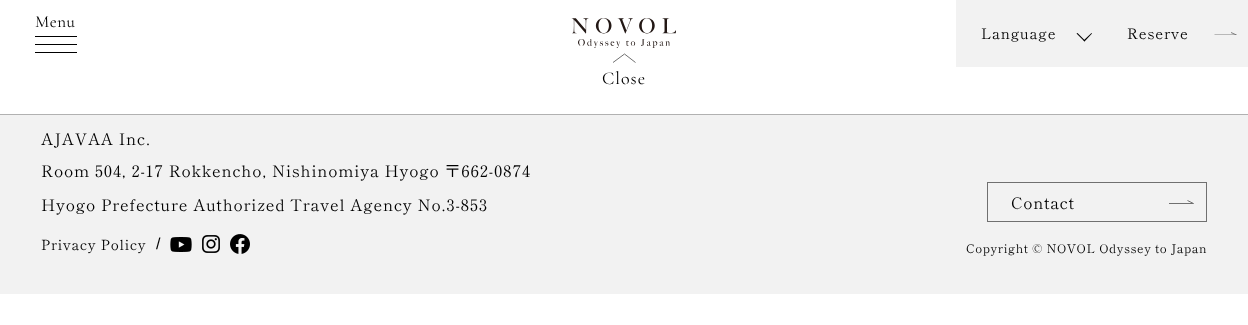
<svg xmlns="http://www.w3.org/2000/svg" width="1248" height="325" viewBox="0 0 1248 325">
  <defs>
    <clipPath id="clip1"><rect x="1214" y="32" width="23" height="3"/></clipPath>
  </defs>
  <rect width="100%" height="100%" fill="rgb(255,255,255)"/>
  <text x="35" y="27" font-family="Cormorant Garamond" font-size="17" letter-spacing="0.5" fill="rgb(0,0,0)">Menu</text>
  <rect x="35" y="36" width="42" height="1" fill="rgb(0,0,0)"/>
  <rect x="35" y="44" width="42" height="1" fill="rgb(0,0,0)"/>
  <rect x="35" y="52" width="42" height="1" fill="rgb(0,0,0)"/>
  <image x="571" y="18" width="105" height="30" href="pic1.png"/>
  <rect x="956" y="0" width="292" height="67" fill="rgb(242,242,242)"/>
  <text x="981" y="39" font-family="Shippori Mincho" font-size="14.5" letter-spacing="0.75" fill="rgb(0,0,0)">Language</text>
  <path d="M1092 33.5L1084.5 41.5L1083.5 40.5L1091.5 33Z" fill="rgb(0,0,0)"/>
  <path d="M1085 40.5L1084.5 41.5L1076.5 33.5L1077.5 33Z" fill="rgb(0,0,0)"/>
  <g clip-path="url(#clip1)">
    <path d="M1214.5 35H1236.5L1231 32.5" fill="none" stroke="rgb(112,112,112)" stroke-width="0.9"/>
  </g>
  <text x="1127" y="39" font-family="Shippori Mincho" font-size="14.5" letter-spacing="0.75" fill="rgb(0,0,0)">Reserve</text>
  <rect x="0" y="114" width="1248" height="1" fill="rgb(177,177,177)"/>
  <path d="M613 62.5L624.5 54L635.5 62.5" fill="none" stroke="rgb(112,112,112)"/>
  <text x="602" y="84" font-family="Cormorant Garamond" font-size="18" letter-spacing="1" fill="rgb(0,0,0)">Close</text>
  <rect x="0" y="115" width="1248" height="179" fill="rgb(242,242,242)"/>
  <g font-family="Shippori Mincho" font-size="16" letter-spacing="0.8" fill="rgb(0,0,0)">
    <text x="41" y="145">AJAVAA Inc.</text>
    <text x="41" y="177">Room 504, 2-17 Rokkencho, Nishinomiya Hyogo 〒662-0874</text>
    <text x="41" y="211">Hyogo Prefecture Authorized Travel Agency No.3-853</text>
  </g>
  <text x="41" y="250" font-family="Shippori Mincho" font-size="14" letter-spacing="0.75" fill="rgb(0,0,0)">Privacy Policy</text>
  <text x="156" y="249" font-family="Liberation Sans" font-size="16" fill="rgb(0,0,0)">/</text>
  <image x="170" y="237" width="22" height="15" href="pic2.png"/>
  <image x="202" y="235" width="18" height="18" href="pic3.png"/>
  <image x="230" y="234" width="20" height="20" href="pic4.png"/>
  <path d="M1169 203.5H1193.5L1187.5 200.5" fill="none" stroke="rgb(112,112,112)"/>
  <rect x="987.5" y="182.5" width="219" height="39" fill="none" stroke="rgb(112,112,112)"/>
  <text x="1011" y="209" font-family="Shippori Mincho" font-size="16" letter-spacing="0.8" fill="rgb(0,0,0)">Contact</text>
  <text x="966" y="253" font-family="Shippori Mincho" font-size="12" letter-spacing="0.6" fill="rgb(0,0,0)">Copyright © NOVOL Odyssey to Japan</text>
</svg>
